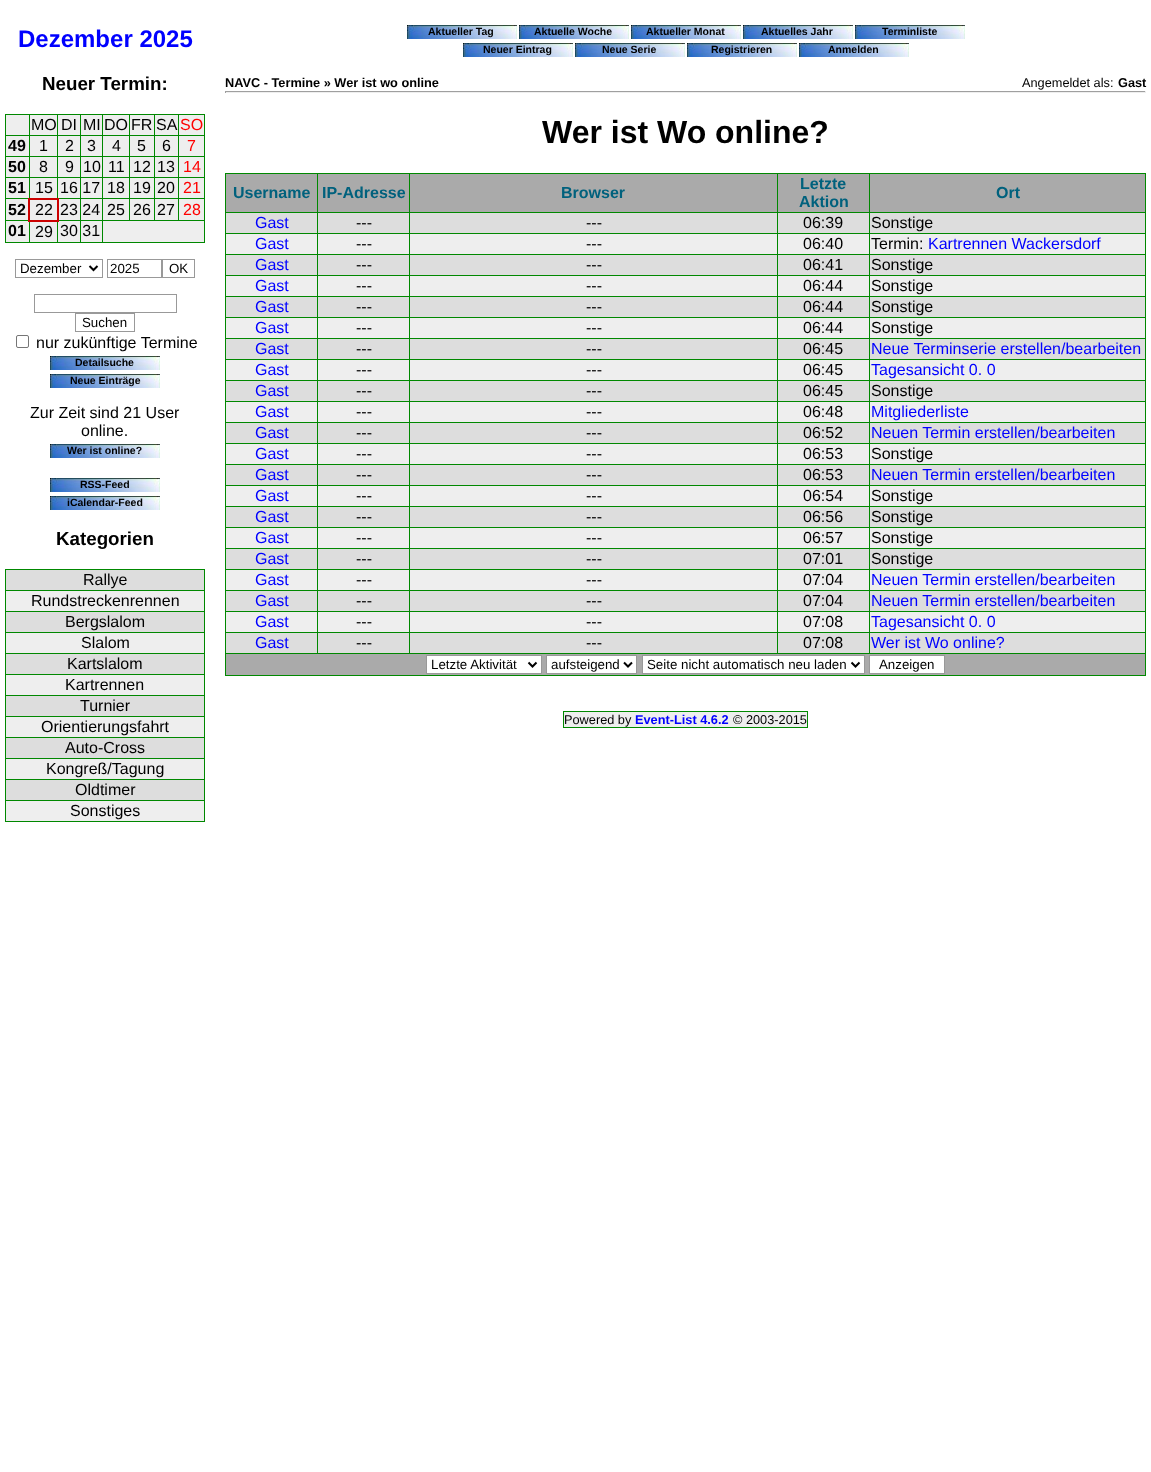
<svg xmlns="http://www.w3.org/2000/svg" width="1151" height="1472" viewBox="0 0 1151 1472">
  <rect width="100%" height="100%" fill="rgb(255,255,255)"/>
  <text x="18" y="47" font-family="Liberation Sans" font-size="24" font-weight="bold" fill="rgb(0,0,255)">Dezember 2025</text>
  <text x="42" y="90" font-family="Liberation Sans" font-size="18.75" font-weight="bold" fill="rgb(0,0,0)">Neuer Termin:</text>
  <rect x="6" y="115" width="198" height="127" fill="rgb(238,238,238)"/>
  <rect x="5" y="114" width="200" height="1" fill="rgb(0,136,0)"/>
  <rect x="204" y="114" width="1" height="129" fill="rgb(0,136,0)"/>
  <rect x="5" y="242" width="200" height="1" fill="rgb(0,136,0)"/>
  <rect x="5" y="114" width="1" height="129" fill="rgb(0,136,0)"/>
  <rect x="178" y="135" width="27" height="1" fill="rgb(0,136,0)"/>
  <rect x="178" y="156" width="27" height="1" fill="rgb(0,136,0)"/>
  <rect x="178" y="177" width="27" height="1" fill="rgb(0,136,0)"/>
  <rect x="178" y="198" width="27" height="1" fill="rgb(0,136,0)"/>
  <rect x="102" y="220" width="103" height="1" fill="rgb(0,136,0)"/>
  <rect x="178" y="198" width="1" height="23" fill="rgb(0,136,0)"/>
  <rect x="154" y="198" width="25" height="1" fill="rgb(0,136,0)"/>
  <rect x="178" y="177" width="1" height="22" fill="rgb(0,136,0)"/>
  <rect x="154" y="177" width="25" height="1" fill="rgb(0,136,0)"/>
  <rect x="178" y="156" width="1" height="22" fill="rgb(0,136,0)"/>
  <rect x="154" y="156" width="25" height="1" fill="rgb(0,136,0)"/>
  <rect x="178" y="135" width="1" height="22" fill="rgb(0,136,0)"/>
  <rect x="154" y="135" width="25" height="1" fill="rgb(0,136,0)"/>
  <rect x="154" y="198" width="1" height="23" fill="rgb(0,136,0)"/>
  <rect x="129" y="198" width="26" height="1" fill="rgb(0,136,0)"/>
  <rect x="154" y="177" width="1" height="22" fill="rgb(0,136,0)"/>
  <rect x="129" y="177" width="26" height="1" fill="rgb(0,136,0)"/>
  <rect x="154" y="156" width="1" height="22" fill="rgb(0,136,0)"/>
  <rect x="129" y="156" width="26" height="1" fill="rgb(0,136,0)"/>
  <rect x="154" y="135" width="1" height="22" fill="rgb(0,136,0)"/>
  <rect x="129" y="135" width="26" height="1" fill="rgb(0,136,0)"/>
  <rect x="129" y="198" width="1" height="23" fill="rgb(0,136,0)"/>
  <rect x="102" y="198" width="28" height="1" fill="rgb(0,136,0)"/>
  <rect x="129" y="177" width="1" height="22" fill="rgb(0,136,0)"/>
  <rect x="102" y="177" width="28" height="1" fill="rgb(0,136,0)"/>
  <rect x="129" y="156" width="1" height="22" fill="rgb(0,136,0)"/>
  <rect x="102" y="156" width="28" height="1" fill="rgb(0,136,0)"/>
  <rect x="129" y="135" width="1" height="22" fill="rgb(0,136,0)"/>
  <rect x="102" y="135" width="28" height="1" fill="rgb(0,136,0)"/>
  <rect x="102" y="220" width="1" height="23" fill="rgb(0,136,0)"/>
  <rect x="80" y="220" width="23" height="1" fill="rgb(0,136,0)"/>
  <rect x="102" y="198" width="1" height="23" fill="rgb(0,136,0)"/>
  <rect x="80" y="198" width="23" height="1" fill="rgb(0,136,0)"/>
  <rect x="102" y="177" width="1" height="22" fill="rgb(0,136,0)"/>
  <rect x="80" y="177" width="23" height="1" fill="rgb(0,136,0)"/>
  <rect x="102" y="156" width="1" height="22" fill="rgb(0,136,0)"/>
  <rect x="80" y="156" width="23" height="1" fill="rgb(0,136,0)"/>
  <rect x="102" y="135" width="1" height="22" fill="rgb(0,136,0)"/>
  <rect x="80" y="135" width="23" height="1" fill="rgb(0,136,0)"/>
  <rect x="80" y="220" width="1" height="23" fill="rgb(0,136,0)"/>
  <rect x="57" y="220" width="24" height="1" fill="rgb(0,136,0)"/>
  <rect x="80" y="198" width="1" height="23" fill="rgb(0,136,0)"/>
  <rect x="57" y="198" width="24" height="1" fill="rgb(0,136,0)"/>
  <rect x="80" y="177" width="1" height="22" fill="rgb(0,136,0)"/>
  <rect x="57" y="177" width="24" height="1" fill="rgb(0,136,0)"/>
  <rect x="80" y="156" width="1" height="22" fill="rgb(0,136,0)"/>
  <rect x="57" y="156" width="24" height="1" fill="rgb(0,136,0)"/>
  <rect x="80" y="135" width="1" height="22" fill="rgb(0,136,0)"/>
  <rect x="57" y="135" width="24" height="1" fill="rgb(0,136,0)"/>
  <rect x="57" y="177" width="1" height="22" fill="rgb(0,136,0)"/>
  <rect x="29" y="177" width="29" height="1" fill="rgb(0,136,0)"/>
  <rect x="57" y="156" width="1" height="22" fill="rgb(0,136,0)"/>
  <rect x="29" y="156" width="29" height="1" fill="rgb(0,136,0)"/>
  <rect x="57" y="135" width="1" height="22" fill="rgb(0,136,0)"/>
  <rect x="29" y="135" width="29" height="1" fill="rgb(0,136,0)"/>
  <rect x="5" y="198" width="25" height="1" fill="rgb(0,136,0)"/>
  <rect x="29" y="177" width="1" height="22" fill="rgb(0,136,0)"/>
  <rect x="5" y="177" width="25" height="1" fill="rgb(0,136,0)"/>
  <rect x="29" y="156" width="1" height="22" fill="rgb(0,136,0)"/>
  <rect x="5" y="156" width="25" height="1" fill="rgb(0,136,0)"/>
  <rect x="29" y="135" width="1" height="22" fill="rgb(0,136,0)"/>
  <rect x="5" y="135" width="25" height="1" fill="rgb(0,136,0)"/>
  <rect x="29" y="114" width="1" height="22" fill="rgb(0,136,0)"/>
  <text x="31" y="130" font-family="Liberation Sans" font-size="16" fill="rgb(0,0,0)">MO</text>
  <rect x="57" y="114" width="1" height="22" fill="rgb(0,136,0)"/>
  <text x="61" y="130" font-family="Liberation Sans" font-size="16" fill="rgb(0,0,0)">DI</text>
  <rect x="80" y="114" width="1" height="22" fill="rgb(0,136,0)"/>
  <text x="83" y="130" font-family="Liberation Sans" font-size="16" fill="rgb(0,0,0)">MI</text>
  <rect x="102" y="114" width="1" height="22" fill="rgb(0,136,0)"/>
  <text x="104" y="130" font-family="Liberation Sans" font-size="16" fill="rgb(0,0,0)">DO</text>
  <rect x="129" y="114" width="1" height="22" fill="rgb(0,136,0)"/>
  <text x="131" y="130" font-family="Liberation Sans" font-size="16" fill="rgb(0,0,0)">FR</text>
  <rect x="154" y="114" width="1" height="22" fill="rgb(0,136,0)"/>
  <text x="156" y="130" font-family="Liberation Sans" font-size="16" fill="rgb(0,0,0)">SA</text>
  <rect x="178" y="114" width="1" height="22" fill="rgb(0,136,0)"/>
  <text x="180" y="130" font-family="Liberation Sans" font-size="16" fill="rgb(255,0,0)">SO</text>
  <text x="8" y="151" font-family="Liberation Sans" font-size="16" font-weight="bold" fill="rgb(0,0,0)">49</text>
  <g font-family="Liberation Sans" font-size="16" fill="rgb(0,0,0)">
    <text x="39" y="151">1</text>
    <text x="65" y="151">2</text>
    <text x="87" y="151">3</text>
    <text x="112" y="151">4</text>
    <text x="137" y="151">5</text>
    <text x="162" y="151">6</text>
  </g>
  <text x="187" y="151" font-family="Liberation Sans" font-size="16" fill="rgb(255,0,0)">7</text>
  <text x="8" y="172" font-family="Liberation Sans" font-size="16" font-weight="bold" fill="rgb(0,0,0)">50</text>
  <g font-family="Liberation Sans" font-size="16" fill="rgb(0,0,0)">
    <text x="39" y="172">8</text>
    <text x="65" y="172">9</text>
    <text x="83" y="172">10</text>
    <text x="108" y="172">11</text>
    <text x="133" y="172">12</text>
    <text x="157" y="172">13</text>
  </g>
  <text x="183" y="172" font-family="Liberation Sans" font-size="16" fill="rgb(255,0,0)">14</text>
  <text x="8" y="193" font-family="Liberation Sans" font-size="16" font-weight="bold" fill="rgb(0,0,0)">51</text>
  <g font-family="Liberation Sans" font-size="16" fill="rgb(0,0,0)">
    <text x="35" y="193">15</text>
    <text x="60" y="193">16 17</text>
    <text x="107" y="193">18</text>
    <text x="133" y="193">19</text>
    <text x="157" y="193">20</text>
  </g>
  <text x="183" y="193" font-family="Liberation Sans" font-size="16" fill="rgb(255,0,0)">21</text>
  <text x="8" y="215" font-family="Liberation Sans" font-size="16" font-weight="bold" fill="rgb(0,0,0)">52</text>
  <rect x="28" y="198" width="31" height="2" fill="rgb(204,0,0)"/>
  <rect x="57" y="220" width="1" height="23" fill="rgb(0,136,0)"/>
  <rect x="57" y="198" width="2" height="24" fill="rgb(204,0,0)"/>
  <rect x="29" y="220" width="1" height="23" fill="rgb(0,136,0)"/>
  <rect x="5" y="220" width="25" height="1" fill="rgb(0,136,0)"/>
  <rect x="28" y="220" width="31" height="2" fill="rgb(204,0,0)"/>
  <rect x="28" y="198" width="2" height="24" fill="rgb(204,0,0)"/>
  <g font-family="Liberation Sans" font-size="16" fill="rgb(0,0,0)">
    <text x="35" y="215">22</text>
    <text x="60" y="215">23 24</text>
    <text x="107" y="215">25</text>
    <text x="133" y="215">26</text>
    <text x="157" y="215">27</text>
  </g>
  <text x="183" y="215" font-family="Liberation Sans" font-size="16" fill="rgb(255,0,0)">28</text>
  <text x="8" y="236" font-family="Liberation Sans" font-size="16" font-weight="bold" fill="rgb(0,0,0)">01</text>
  <g font-family="Liberation Sans" font-size="16" fill="rgb(0,0,0)">
    <text x="35" y="237">29</text>
    <text x="60" y="236">30 31</text>
  </g>
  <rect x="15.5" y="259.5" width="87" height="18" fill="none" stroke="rgb(153,153,153)"/>
  <path d="M89.5 266L93.5 270L97.5 266" fill="none" stroke="rgb(0,0,0)" stroke-width="2"/>
  <text x="20" y="273" font-family="Liberation Sans" font-size="13.3" fill="rgb(0,0,0)">Dezember</text>
  <rect x="107.5" y="259.5" width="54" height="18" fill="none" stroke="rgb(153,153,153)"/>
  <text x="110" y="273" font-family="Liberation Sans" font-size="13.3" fill="rgb(0,0,0)">2025</text>
  <rect x="162.5" y="259.5" width="32" height="18" fill="none" stroke="rgb(153,153,153)"/>
  <text x="169" y="273" font-family="Liberation Sans" font-size="13.3" fill="rgb(0,0,0)">OK</text>
  <rect x="34.5" y="294.5" width="142" height="18" fill="none" stroke="rgb(153,153,153)"/>
  <rect x="75.5" y="313.5" width="59" height="18" fill="none" stroke="rgb(153,153,153)"/>
  <text x="82" y="327" font-family="Liberation Sans" font-size="13.3" fill="rgb(0,0,0)">Suchen</text>
  <rect x="16.5" y="335.5" width="12" height="12" rx="1.5" fill="none" stroke="rgb(118,118,118)"/>
  <text x="36" y="348" font-family="Liberation Sans" font-size="16" fill="rgb(0,0,0)">nur zukünftige Termine</text>
  <image x="50" y="356" width="110" height="14" href="pic1.png"/>
  <text x="75" y="366" font-family="Liberation Sans" font-size="10.5" font-weight="bold" fill="rgb(0,0,0)">Detailsuche</text>
  <image x="50" y="374" width="110" height="14" href="pic1.png"/>
  <text x="70" y="384" font-family="Liberation Sans" font-size="10.5" font-weight="bold" fill="rgb(0,0,0)">Neue Einträge</text>
  <g font-family="Liberation Sans" font-size="16" fill="rgb(0,0,0)">
    <text x="30" y="418">Zur Zeit sind 21 User</text>
    <text x="81" y="436">online.</text>
  </g>
  <image x="50" y="444" width="110" height="14" href="pic1.png"/>
  <text x="67" y="454" font-family="Liberation Sans" font-size="10.5" font-weight="bold" fill="rgb(0,0,0)">Wer ist online?</text>
  <image x="50" y="478" width="110" height="14" href="pic1.png"/>
  <text x="80" y="488" font-family="Liberation Sans" font-size="10.5" font-weight="bold" fill="rgb(0,0,0)">RSS-Feed</text>
  <image x="50" y="496" width="110" height="14" href="pic1.png"/>
  <text x="67" y="506" font-family="Liberation Sans" font-size="10.5" font-weight="bold" fill="rgb(0,0,0)">iCalendar-Feed</text>
  <text x="56" y="545" font-family="Liberation Sans" font-size="18.75" font-weight="bold" fill="rgb(0,0,0)">Kategorien</text>
  <rect x="5" y="569" width="200" height="1" fill="rgb(0,136,0)"/>
  <rect x="204" y="569" width="1" height="253" fill="rgb(0,136,0)"/>
  <rect x="5" y="821" width="200" height="1" fill="rgb(0,136,0)"/>
  <rect x="5" y="569" width="1" height="253" fill="rgb(0,136,0)"/>
  <rect x="6" y="570" width="198" height="20" fill="rgb(221,221,221)"/>
  <text x="83" y="585" font-family="Liberation Sans" font-size="16" fill="rgb(0,0,0)">Rallye</text>
  <rect x="6" y="591" width="198" height="20" fill="rgb(238,238,238)"/>
  <rect x="5" y="590" width="200" height="1" fill="rgb(0,136,0)"/>
  <text x="31" y="606" font-family="Liberation Sans" font-size="16" fill="rgb(0,0,0)">Rundstreckenrennen</text>
  <rect x="6" y="612" width="198" height="20" fill="rgb(221,221,221)"/>
  <rect x="5" y="611" width="200" height="1" fill="rgb(0,136,0)"/>
  <text x="65" y="627" font-family="Liberation Sans" font-size="16" fill="rgb(0,0,0)">Bergslalom</text>
  <rect x="6" y="633" width="198" height="20" fill="rgb(238,238,238)"/>
  <rect x="5" y="632" width="200" height="1" fill="rgb(0,136,0)"/>
  <text x="81" y="648" font-family="Liberation Sans" font-size="16" fill="rgb(0,0,0)">Slalom</text>
  <rect x="6" y="654" width="198" height="20" fill="rgb(221,221,221)"/>
  <rect x="5" y="653" width="200" height="1" fill="rgb(0,136,0)"/>
  <text x="67" y="669" font-family="Liberation Sans" font-size="16" fill="rgb(0,0,0)">Kartslalom</text>
  <rect x="6" y="675" width="198" height="20" fill="rgb(238,238,238)"/>
  <rect x="5" y="674" width="200" height="1" fill="rgb(0,136,0)"/>
  <text x="65" y="690" font-family="Liberation Sans" font-size="16" fill="rgb(0,0,0)">Kartrennen</text>
  <rect x="6" y="696" width="198" height="20" fill="rgb(221,221,221)"/>
  <rect x="5" y="695" width="200" height="1" fill="rgb(0,136,0)"/>
  <text x="80" y="711" font-family="Liberation Sans" font-size="16" fill="rgb(0,0,0)">Turnier</text>
  <rect x="6" y="717" width="198" height="20" fill="rgb(238,238,238)"/>
  <rect x="5" y="716" width="200" height="1" fill="rgb(0,136,0)"/>
  <text x="41" y="732" font-family="Liberation Sans" font-size="16" fill="rgb(0,0,0)">Orientierungsfahrt</text>
  <rect x="6" y="738" width="198" height="20" fill="rgb(221,221,221)"/>
  <rect x="5" y="737" width="200" height="1" fill="rgb(0,136,0)"/>
  <text x="65" y="753" font-family="Liberation Sans" font-size="16" fill="rgb(0,0,0)">Auto-Cross</text>
  <rect x="6" y="759" width="198" height="20" fill="rgb(238,238,238)"/>
  <rect x="5" y="758" width="200" height="1" fill="rgb(0,136,0)"/>
  <text x="46" y="774" font-family="Liberation Sans" font-size="16" fill="rgb(0,0,0)">Kongreß/Tagung</text>
  <rect x="6" y="780" width="198" height="20" fill="rgb(221,221,221)"/>
  <rect x="5" y="779" width="200" height="1" fill="rgb(0,136,0)"/>
  <text x="75" y="795" font-family="Liberation Sans" font-size="16" fill="rgb(0,0,0)">Oldtimer</text>
  <rect x="6" y="801" width="198" height="20" fill="rgb(238,238,238)"/>
  <rect x="5" y="800" width="200" height="1" fill="rgb(0,136,0)"/>
  <text x="70" y="816" font-family="Liberation Sans" font-size="16" fill="rgb(0,0,0)">Sonstiges</text>
  <image x="407" y="25" width="110" height="14" href="pic1.png"/>
  <text x="428" y="35" font-family="Liberation Sans" font-size="10.5" font-weight="bold" fill="rgb(0,0,0)">Aktueller Tag</text>
  <image x="519" y="25" width="110" height="14" href="pic1.png"/>
  <text x="534" y="35" font-family="Liberation Sans" font-size="10.5" font-weight="bold" fill="rgb(0,0,0)">Aktuelle Woche</text>
  <image x="631" y="25" width="110" height="14" href="pic1.png"/>
  <text x="646" y="35" font-family="Liberation Sans" font-size="10.5" font-weight="bold" fill="rgb(0,0,0)">Aktueller Monat</text>
  <image x="743" y="25" width="110" height="14" href="pic1.png"/>
  <text x="761" y="35" font-family="Liberation Sans" font-size="10.5" font-weight="bold" fill="rgb(0,0,0)">Aktuelles Jahr</text>
  <image x="855" y="25" width="110" height="14" href="pic1.png"/>
  <text x="882" y="35" font-family="Liberation Sans" font-size="10.5" font-weight="bold" fill="rgb(0,0,0)">Terminliste</text>
  <image x="463" y="43" width="110" height="14" href="pic1.png"/>
  <text x="483" y="53" font-family="Liberation Sans" font-size="10.5" font-weight="bold" fill="rgb(0,0,0)">Neuer Eintrag</text>
  <image x="575" y="43" width="110" height="14" href="pic1.png"/>
  <text x="602" y="53" font-family="Liberation Sans" font-size="10.5" font-weight="bold" fill="rgb(0,0,0)">Neue Serie</text>
  <image x="687" y="43" width="110" height="14" href="pic1.png"/>
  <text x="711" y="53" font-family="Liberation Sans" font-size="10.5" font-weight="bold" fill="rgb(0,0,0)">Registrieren</text>
  <image x="799" y="43" width="110" height="14" href="pic1.png"/>
  <text x="828" y="53" font-family="Liberation Sans" font-size="10.5" font-weight="bold" fill="rgb(0,0,0)">Anmelden</text>
  <text x="225" y="87" font-family="Liberation Sans" font-size="12.75" font-weight="bold" fill="rgb(0,0,0)">NAVC - Termine » Wer ist wo online</text>
  <text x="1022" y="87" font-family="Liberation Sans" font-size="12.75" fill="rgb(0,0,0)">Angemeldet als:</text>
  <text x="1118" y="87" font-family="Liberation Sans" font-size="12.75" font-weight="bold" fill="rgb(0,0,0)">Gast</text>
  <rect x="225" y="91" width="921" height="1" fill="rgb(159,159,159)"/>
  <rect x="1145" y="91" width="1" height="2" fill="rgb(238,238,238)"/>
  <rect x="225" y="92" width="921" height="1" fill="rgb(238,238,238)"/>
  <rect x="225" y="91" width="1" height="2" fill="rgb(159,159,159)"/>
  <text x="542" y="143" font-family="Liberation Sans" font-size="32" font-weight="bold" fill="rgb(0,0,0)">Wer ist Wo online?</text>
  <rect x="225" y="173" width="921" height="1" fill="rgb(0,136,0)"/>
  <rect x="1145" y="173" width="1" height="503" fill="rgb(0,136,0)"/>
  <rect x="225" y="675" width="921" height="1" fill="rgb(0,136,0)"/>
  <rect x="225" y="173" width="1" height="503" fill="rgb(0,136,0)"/>
  <rect x="226" y="174" width="91" height="38" fill="rgb(170,170,170)"/>
  <text x="233" y="198" font-family="Liberation Sans" font-size="16" font-weight="bold" fill="rgb(0,97,125)">Username</text>
  <rect x="318" y="174" width="91" height="38" fill="rgb(170,170,170)"/>
  <rect x="869" y="212" width="277" height="1" fill="rgb(0,136,0)"/>
  <rect x="869" y="233" width="277" height="1" fill="rgb(0,136,0)"/>
  <rect x="869" y="254" width="277" height="1" fill="rgb(0,136,0)"/>
  <rect x="869" y="275" width="277" height="1" fill="rgb(0,136,0)"/>
  <rect x="869" y="296" width="277" height="1" fill="rgb(0,136,0)"/>
  <rect x="869" y="317" width="277" height="1" fill="rgb(0,136,0)"/>
  <rect x="869" y="338" width="277" height="1" fill="rgb(0,136,0)"/>
  <rect x="869" y="359" width="277" height="1" fill="rgb(0,136,0)"/>
  <rect x="869" y="380" width="277" height="1" fill="rgb(0,136,0)"/>
  <rect x="869" y="401" width="277" height="1" fill="rgb(0,136,0)"/>
  <rect x="869" y="422" width="277" height="1" fill="rgb(0,136,0)"/>
  <rect x="869" y="443" width="277" height="1" fill="rgb(0,136,0)"/>
  <rect x="869" y="464" width="277" height="1" fill="rgb(0,136,0)"/>
  <rect x="869" y="485" width="277" height="1" fill="rgb(0,136,0)"/>
  <rect x="869" y="506" width="277" height="1" fill="rgb(0,136,0)"/>
  <rect x="869" y="527" width="277" height="1" fill="rgb(0,136,0)"/>
  <rect x="869" y="548" width="277" height="1" fill="rgb(0,136,0)"/>
  <rect x="869" y="569" width="277" height="1" fill="rgb(0,136,0)"/>
  <rect x="869" y="590" width="277" height="1" fill="rgb(0,136,0)"/>
  <rect x="869" y="611" width="277" height="1" fill="rgb(0,136,0)"/>
  <rect x="869" y="632" width="277" height="1" fill="rgb(0,136,0)"/>
  <rect x="225" y="653" width="921" height="1" fill="rgb(0,136,0)"/>
  <rect x="869" y="632" width="1" height="22" fill="rgb(0,136,0)"/>
  <rect x="777" y="632" width="93" height="1" fill="rgb(0,136,0)"/>
  <rect x="869" y="611" width="1" height="22" fill="rgb(0,136,0)"/>
  <rect x="777" y="611" width="93" height="1" fill="rgb(0,136,0)"/>
  <rect x="869" y="590" width="1" height="22" fill="rgb(0,136,0)"/>
  <rect x="777" y="590" width="93" height="1" fill="rgb(0,136,0)"/>
  <rect x="869" y="569" width="1" height="22" fill="rgb(0,136,0)"/>
  <rect x="777" y="569" width="93" height="1" fill="rgb(0,136,0)"/>
  <rect x="869" y="548" width="1" height="22" fill="rgb(0,136,0)"/>
  <rect x="777" y="548" width="93" height="1" fill="rgb(0,136,0)"/>
  <rect x="869" y="527" width="1" height="22" fill="rgb(0,136,0)"/>
  <rect x="777" y="527" width="93" height="1" fill="rgb(0,136,0)"/>
  <rect x="869" y="506" width="1" height="22" fill="rgb(0,136,0)"/>
  <rect x="777" y="506" width="93" height="1" fill="rgb(0,136,0)"/>
  <rect x="869" y="485" width="1" height="22" fill="rgb(0,136,0)"/>
  <rect x="777" y="485" width="93" height="1" fill="rgb(0,136,0)"/>
  <rect x="869" y="464" width="1" height="22" fill="rgb(0,136,0)"/>
  <rect x="777" y="464" width="93" height="1" fill="rgb(0,136,0)"/>
  <rect x="869" y="443" width="1" height="22" fill="rgb(0,136,0)"/>
  <rect x="777" y="443" width="93" height="1" fill="rgb(0,136,0)"/>
  <rect x="869" y="422" width="1" height="22" fill="rgb(0,136,0)"/>
  <rect x="777" y="422" width="93" height="1" fill="rgb(0,136,0)"/>
  <rect x="869" y="401" width="1" height="22" fill="rgb(0,136,0)"/>
  <rect x="777" y="401" width="93" height="1" fill="rgb(0,136,0)"/>
  <rect x="869" y="380" width="1" height="22" fill="rgb(0,136,0)"/>
  <rect x="777" y="380" width="93" height="1" fill="rgb(0,136,0)"/>
  <rect x="869" y="359" width="1" height="22" fill="rgb(0,136,0)"/>
  <rect x="777" y="359" width="93" height="1" fill="rgb(0,136,0)"/>
  <rect x="869" y="338" width="1" height="22" fill="rgb(0,136,0)"/>
  <rect x="777" y="338" width="93" height="1" fill="rgb(0,136,0)"/>
  <rect x="869" y="317" width="1" height="22" fill="rgb(0,136,0)"/>
  <rect x="777" y="317" width="93" height="1" fill="rgb(0,136,0)"/>
  <rect x="869" y="296" width="1" height="22" fill="rgb(0,136,0)"/>
  <rect x="777" y="296" width="93" height="1" fill="rgb(0,136,0)"/>
  <rect x="869" y="275" width="1" height="22" fill="rgb(0,136,0)"/>
  <rect x="777" y="275" width="93" height="1" fill="rgb(0,136,0)"/>
  <rect x="869" y="254" width="1" height="22" fill="rgb(0,136,0)"/>
  <rect x="777" y="254" width="93" height="1" fill="rgb(0,136,0)"/>
  <rect x="869" y="233" width="1" height="22" fill="rgb(0,136,0)"/>
  <rect x="777" y="233" width="93" height="1" fill="rgb(0,136,0)"/>
  <rect x="869" y="212" width="1" height="22" fill="rgb(0,136,0)"/>
  <rect x="777" y="212" width="93" height="1" fill="rgb(0,136,0)"/>
  <rect x="777" y="632" width="1" height="22" fill="rgb(0,136,0)"/>
  <rect x="409" y="632" width="369" height="1" fill="rgb(0,136,0)"/>
  <rect x="777" y="611" width="1" height="22" fill="rgb(0,136,0)"/>
  <rect x="409" y="611" width="369" height="1" fill="rgb(0,136,0)"/>
  <rect x="777" y="590" width="1" height="22" fill="rgb(0,136,0)"/>
  <rect x="409" y="590" width="369" height="1" fill="rgb(0,136,0)"/>
  <rect x="777" y="569" width="1" height="22" fill="rgb(0,136,0)"/>
  <rect x="409" y="569" width="369" height="1" fill="rgb(0,136,0)"/>
  <rect x="777" y="548" width="1" height="22" fill="rgb(0,136,0)"/>
  <rect x="409" y="548" width="369" height="1" fill="rgb(0,136,0)"/>
  <rect x="777" y="527" width="1" height="22" fill="rgb(0,136,0)"/>
  <rect x="409" y="527" width="369" height="1" fill="rgb(0,136,0)"/>
  <rect x="777" y="506" width="1" height="22" fill="rgb(0,136,0)"/>
  <rect x="409" y="506" width="369" height="1" fill="rgb(0,136,0)"/>
  <rect x="777" y="485" width="1" height="22" fill="rgb(0,136,0)"/>
  <rect x="409" y="485" width="369" height="1" fill="rgb(0,136,0)"/>
  <rect x="777" y="464" width="1" height="22" fill="rgb(0,136,0)"/>
  <rect x="409" y="464" width="369" height="1" fill="rgb(0,136,0)"/>
  <rect x="777" y="443" width="1" height="22" fill="rgb(0,136,0)"/>
  <rect x="409" y="443" width="369" height="1" fill="rgb(0,136,0)"/>
  <rect x="777" y="422" width="1" height="22" fill="rgb(0,136,0)"/>
  <rect x="409" y="422" width="369" height="1" fill="rgb(0,136,0)"/>
  <rect x="777" y="401" width="1" height="22" fill="rgb(0,136,0)"/>
  <rect x="409" y="401" width="369" height="1" fill="rgb(0,136,0)"/>
  <rect x="777" y="380" width="1" height="22" fill="rgb(0,136,0)"/>
  <rect x="409" y="380" width="369" height="1" fill="rgb(0,136,0)"/>
  <rect x="777" y="359" width="1" height="22" fill="rgb(0,136,0)"/>
  <rect x="409" y="359" width="369" height="1" fill="rgb(0,136,0)"/>
  <rect x="777" y="338" width="1" height="22" fill="rgb(0,136,0)"/>
  <rect x="409" y="338" width="369" height="1" fill="rgb(0,136,0)"/>
  <rect x="777" y="317" width="1" height="22" fill="rgb(0,136,0)"/>
  <rect x="409" y="317" width="369" height="1" fill="rgb(0,136,0)"/>
  <rect x="777" y="296" width="1" height="22" fill="rgb(0,136,0)"/>
  <rect x="409" y="296" width="369" height="1" fill="rgb(0,136,0)"/>
  <rect x="777" y="275" width="1" height="22" fill="rgb(0,136,0)"/>
  <rect x="409" y="275" width="369" height="1" fill="rgb(0,136,0)"/>
  <rect x="777" y="254" width="1" height="22" fill="rgb(0,136,0)"/>
  <rect x="409" y="254" width="369" height="1" fill="rgb(0,136,0)"/>
  <rect x="777" y="233" width="1" height="22" fill="rgb(0,136,0)"/>
  <rect x="409" y="233" width="369" height="1" fill="rgb(0,136,0)"/>
  <rect x="777" y="212" width="1" height="22" fill="rgb(0,136,0)"/>
  <rect x="409" y="212" width="369" height="1" fill="rgb(0,136,0)"/>
  <rect x="409" y="632" width="1" height="22" fill="rgb(0,136,0)"/>
  <rect x="317" y="632" width="93" height="1" fill="rgb(0,136,0)"/>
  <rect x="409" y="611" width="1" height="22" fill="rgb(0,136,0)"/>
  <rect x="317" y="611" width="93" height="1" fill="rgb(0,136,0)"/>
  <rect x="409" y="590" width="1" height="22" fill="rgb(0,136,0)"/>
  <rect x="317" y="590" width="93" height="1" fill="rgb(0,136,0)"/>
  <rect x="409" y="569" width="1" height="22" fill="rgb(0,136,0)"/>
  <rect x="317" y="569" width="93" height="1" fill="rgb(0,136,0)"/>
  <rect x="409" y="548" width="1" height="22" fill="rgb(0,136,0)"/>
  <rect x="317" y="548" width="93" height="1" fill="rgb(0,136,0)"/>
  <rect x="409" y="527" width="1" height="22" fill="rgb(0,136,0)"/>
  <rect x="317" y="527" width="93" height="1" fill="rgb(0,136,0)"/>
  <rect x="409" y="506" width="1" height="22" fill="rgb(0,136,0)"/>
  <rect x="317" y="506" width="93" height="1" fill="rgb(0,136,0)"/>
  <rect x="409" y="485" width="1" height="22" fill="rgb(0,136,0)"/>
  <rect x="317" y="485" width="93" height="1" fill="rgb(0,136,0)"/>
  <rect x="409" y="464" width="1" height="22" fill="rgb(0,136,0)"/>
  <rect x="317" y="464" width="93" height="1" fill="rgb(0,136,0)"/>
  <rect x="409" y="443" width="1" height="22" fill="rgb(0,136,0)"/>
  <rect x="317" y="443" width="93" height="1" fill="rgb(0,136,0)"/>
  <rect x="409" y="422" width="1" height="22" fill="rgb(0,136,0)"/>
  <rect x="317" y="422" width="93" height="1" fill="rgb(0,136,0)"/>
  <rect x="409" y="401" width="1" height="22" fill="rgb(0,136,0)"/>
  <rect x="317" y="401" width="93" height="1" fill="rgb(0,136,0)"/>
  <rect x="409" y="380" width="1" height="22" fill="rgb(0,136,0)"/>
  <rect x="317" y="380" width="93" height="1" fill="rgb(0,136,0)"/>
  <rect x="409" y="359" width="1" height="22" fill="rgb(0,136,0)"/>
  <rect x="317" y="359" width="93" height="1" fill="rgb(0,136,0)"/>
  <rect x="409" y="338" width="1" height="22" fill="rgb(0,136,0)"/>
  <rect x="317" y="338" width="93" height="1" fill="rgb(0,136,0)"/>
  <rect x="409" y="317" width="1" height="22" fill="rgb(0,136,0)"/>
  <rect x="317" y="317" width="93" height="1" fill="rgb(0,136,0)"/>
  <rect x="409" y="296" width="1" height="22" fill="rgb(0,136,0)"/>
  <rect x="317" y="296" width="93" height="1" fill="rgb(0,136,0)"/>
  <rect x="409" y="275" width="1" height="22" fill="rgb(0,136,0)"/>
  <rect x="317" y="275" width="93" height="1" fill="rgb(0,136,0)"/>
  <rect x="409" y="254" width="1" height="22" fill="rgb(0,136,0)"/>
  <rect x="317" y="254" width="93" height="1" fill="rgb(0,136,0)"/>
  <rect x="409" y="233" width="1" height="22" fill="rgb(0,136,0)"/>
  <rect x="317" y="233" width="93" height="1" fill="rgb(0,136,0)"/>
  <rect x="409" y="212" width="1" height="22" fill="rgb(0,136,0)"/>
  <rect x="317" y="212" width="93" height="1" fill="rgb(0,136,0)"/>
  <rect x="317" y="632" width="1" height="22" fill="rgb(0,136,0)"/>
  <rect x="225" y="632" width="93" height="1" fill="rgb(0,136,0)"/>
  <rect x="317" y="611" width="1" height="22" fill="rgb(0,136,0)"/>
  <rect x="225" y="611" width="93" height="1" fill="rgb(0,136,0)"/>
  <rect x="317" y="590" width="1" height="22" fill="rgb(0,136,0)"/>
  <rect x="225" y="590" width="93" height="1" fill="rgb(0,136,0)"/>
  <rect x="317" y="569" width="1" height="22" fill="rgb(0,136,0)"/>
  <rect x="225" y="569" width="93" height="1" fill="rgb(0,136,0)"/>
  <rect x="317" y="548" width="1" height="22" fill="rgb(0,136,0)"/>
  <rect x="225" y="548" width="93" height="1" fill="rgb(0,136,0)"/>
  <rect x="317" y="527" width="1" height="22" fill="rgb(0,136,0)"/>
  <rect x="225" y="527" width="93" height="1" fill="rgb(0,136,0)"/>
  <rect x="317" y="506" width="1" height="22" fill="rgb(0,136,0)"/>
  <rect x="225" y="506" width="93" height="1" fill="rgb(0,136,0)"/>
  <rect x="317" y="485" width="1" height="22" fill="rgb(0,136,0)"/>
  <rect x="225" y="485" width="93" height="1" fill="rgb(0,136,0)"/>
  <rect x="317" y="464" width="1" height="22" fill="rgb(0,136,0)"/>
  <rect x="225" y="464" width="93" height="1" fill="rgb(0,136,0)"/>
  <rect x="317" y="443" width="1" height="22" fill="rgb(0,136,0)"/>
  <rect x="225" y="443" width="93" height="1" fill="rgb(0,136,0)"/>
  <rect x="317" y="422" width="1" height="22" fill="rgb(0,136,0)"/>
  <rect x="225" y="422" width="93" height="1" fill="rgb(0,136,0)"/>
  <rect x="317" y="401" width="1" height="22" fill="rgb(0,136,0)"/>
  <rect x="225" y="401" width="93" height="1" fill="rgb(0,136,0)"/>
  <rect x="317" y="380" width="1" height="22" fill="rgb(0,136,0)"/>
  <rect x="225" y="380" width="93" height="1" fill="rgb(0,136,0)"/>
  <rect x="317" y="359" width="1" height="22" fill="rgb(0,136,0)"/>
  <rect x="225" y="359" width="93" height="1" fill="rgb(0,136,0)"/>
  <rect x="317" y="338" width="1" height="22" fill="rgb(0,136,0)"/>
  <rect x="225" y="338" width="93" height="1" fill="rgb(0,136,0)"/>
  <rect x="317" y="317" width="1" height="22" fill="rgb(0,136,0)"/>
  <rect x="225" y="317" width="93" height="1" fill="rgb(0,136,0)"/>
  <rect x="317" y="296" width="1" height="22" fill="rgb(0,136,0)"/>
  <rect x="225" y="296" width="93" height="1" fill="rgb(0,136,0)"/>
  <rect x="317" y="275" width="1" height="22" fill="rgb(0,136,0)"/>
  <rect x="225" y="275" width="93" height="1" fill="rgb(0,136,0)"/>
  <rect x="317" y="254" width="1" height="22" fill="rgb(0,136,0)"/>
  <rect x="225" y="254" width="93" height="1" fill="rgb(0,136,0)"/>
  <rect x="317" y="233" width="1" height="22" fill="rgb(0,136,0)"/>
  <rect x="225" y="233" width="93" height="1" fill="rgb(0,136,0)"/>
  <rect x="317" y="212" width="1" height="22" fill="rgb(0,136,0)"/>
  <rect x="225" y="212" width="93" height="1" fill="rgb(0,136,0)"/>
  <rect x="317" y="173" width="1" height="40" fill="rgb(0,136,0)"/>
  <text x="322" y="198" font-family="Liberation Sans" font-size="16" font-weight="bold" fill="rgb(0,97,125)">IP-Adresse</text>
  <rect x="410" y="174" width="367" height="38" fill="rgb(170,170,170)"/>
  <rect x="409" y="173" width="1" height="40" fill="rgb(0,136,0)"/>
  <text x="561" y="198" font-family="Liberation Sans" font-size="16" font-weight="bold" fill="rgb(0,97,125)">Browser</text>
  <rect x="778" y="174" width="91" height="38" fill="rgb(170,170,170)"/>
  <rect x="777" y="173" width="1" height="40" fill="rgb(0,136,0)"/>
  <g font-family="Liberation Sans" font-size="16" font-weight="bold" fill="rgb(0,97,125)">
    <text x="800" y="189">Letzte</text>
    <text x="799" y="207">Aktion</text>
  </g>
  <rect x="870" y="174" width="275" height="38" fill="rgb(170,170,170)"/>
  <rect x="869" y="173" width="1" height="40" fill="rgb(0,136,0)"/>
  <text x="996" y="198" font-family="Liberation Sans" font-size="16" font-weight="bold" fill="rgb(0,97,125)">Ort</text>
  <rect x="226" y="213" width="91" height="20" fill="rgb(221,221,221)"/>
  <text x="255" y="228" font-family="Liberation Sans" font-size="16" fill="rgb(0,0,255)">Gast</text>
  <rect x="318" y="213" width="91" height="20" fill="rgb(221,221,221)"/>
  <text x="356" y="228" font-family="Liberation Sans" font-size="16" fill="rgb(0,0,0)">---</text>
  <rect x="410" y="213" width="367" height="20" fill="rgb(221,221,221)"/>
  <text x="586" y="228" font-family="Liberation Sans" font-size="16" fill="rgb(0,0,0)">---</text>
  <rect x="778" y="213" width="91" height="20" fill="rgb(221,221,221)"/>
  <text x="803" y="228" font-family="Liberation Sans" font-size="16" fill="rgb(0,0,0)">06:39</text>
  <rect x="870" y="213" width="275" height="20" fill="rgb(221,221,221)"/>
  <text x="871" y="228" font-family="Liberation Sans" font-size="16" fill="rgb(0,0,0)">Sonstige</text>
  <rect x="226" y="234" width="91" height="20" fill="rgb(238,238,238)"/>
  <text x="255" y="249" font-family="Liberation Sans" font-size="16" fill="rgb(0,0,255)">Gast</text>
  <rect x="318" y="234" width="91" height="20" fill="rgb(238,238,238)"/>
  <text x="356" y="249" font-family="Liberation Sans" font-size="16" fill="rgb(0,0,0)">---</text>
  <rect x="410" y="234" width="367" height="20" fill="rgb(238,238,238)"/>
  <text x="586" y="249" font-family="Liberation Sans" font-size="16" fill="rgb(0,0,0)">---</text>
  <rect x="778" y="234" width="91" height="20" fill="rgb(238,238,238)"/>
  <text x="803" y="249" font-family="Liberation Sans" font-size="16" fill="rgb(0,0,0)">06:40</text>
  <rect x="870" y="234" width="275" height="20" fill="rgb(238,238,238)"/>
  <text x="871" y="249" font-family="Liberation Sans" font-size="16" fill="rgb(0,0,0)">Termin:</text>
  <text x="928" y="249" font-family="Liberation Sans" font-size="16" fill="rgb(0,0,255)">Kartrennen Wackersdorf</text>
  <rect x="226" y="255" width="91" height="20" fill="rgb(221,221,221)"/>
  <text x="255" y="270" font-family="Liberation Sans" font-size="16" fill="rgb(0,0,255)">Gast</text>
  <rect x="318" y="255" width="91" height="20" fill="rgb(221,221,221)"/>
  <text x="356" y="270" font-family="Liberation Sans" font-size="16" fill="rgb(0,0,0)">---</text>
  <rect x="410" y="255" width="367" height="20" fill="rgb(221,221,221)"/>
  <text x="586" y="270" font-family="Liberation Sans" font-size="16" fill="rgb(0,0,0)">---</text>
  <rect x="778" y="255" width="91" height="20" fill="rgb(221,221,221)"/>
  <text x="803" y="270" font-family="Liberation Sans" font-size="16" fill="rgb(0,0,0)">06:41</text>
  <rect x="870" y="255" width="275" height="20" fill="rgb(221,221,221)"/>
  <text x="871" y="270" font-family="Liberation Sans" font-size="16" fill="rgb(0,0,0)">Sonstige</text>
  <rect x="226" y="276" width="91" height="20" fill="rgb(238,238,238)"/>
  <text x="255" y="291" font-family="Liberation Sans" font-size="16" fill="rgb(0,0,255)">Gast</text>
  <rect x="318" y="276" width="91" height="20" fill="rgb(238,238,238)"/>
  <text x="356" y="291" font-family="Liberation Sans" font-size="16" fill="rgb(0,0,0)">---</text>
  <rect x="410" y="276" width="367" height="20" fill="rgb(238,238,238)"/>
  <text x="586" y="291" font-family="Liberation Sans" font-size="16" fill="rgb(0,0,0)">---</text>
  <rect x="778" y="276" width="91" height="20" fill="rgb(238,238,238)"/>
  <text x="803" y="291" font-family="Liberation Sans" font-size="16" fill="rgb(0,0,0)">06:44</text>
  <rect x="870" y="276" width="275" height="20" fill="rgb(238,238,238)"/>
  <text x="871" y="291" font-family="Liberation Sans" font-size="16" fill="rgb(0,0,0)">Sonstige</text>
  <rect x="226" y="297" width="91" height="20" fill="rgb(221,221,221)"/>
  <text x="255" y="312" font-family="Liberation Sans" font-size="16" fill="rgb(0,0,255)">Gast</text>
  <rect x="318" y="297" width="91" height="20" fill="rgb(221,221,221)"/>
  <text x="356" y="312" font-family="Liberation Sans" font-size="16" fill="rgb(0,0,0)">---</text>
  <rect x="410" y="297" width="367" height="20" fill="rgb(221,221,221)"/>
  <text x="586" y="312" font-family="Liberation Sans" font-size="16" fill="rgb(0,0,0)">---</text>
  <rect x="778" y="297" width="91" height="20" fill="rgb(221,221,221)"/>
  <text x="803" y="312" font-family="Liberation Sans" font-size="16" fill="rgb(0,0,0)">06:44</text>
  <rect x="870" y="297" width="275" height="20" fill="rgb(221,221,221)"/>
  <text x="871" y="312" font-family="Liberation Sans" font-size="16" fill="rgb(0,0,0)">Sonstige</text>
  <rect x="226" y="318" width="91" height="20" fill="rgb(238,238,238)"/>
  <text x="255" y="333" font-family="Liberation Sans" font-size="16" fill="rgb(0,0,255)">Gast</text>
  <rect x="318" y="318" width="91" height="20" fill="rgb(238,238,238)"/>
  <text x="356" y="333" font-family="Liberation Sans" font-size="16" fill="rgb(0,0,0)">---</text>
  <rect x="410" y="318" width="367" height="20" fill="rgb(238,238,238)"/>
  <text x="586" y="333" font-family="Liberation Sans" font-size="16" fill="rgb(0,0,0)">---</text>
  <rect x="778" y="318" width="91" height="20" fill="rgb(238,238,238)"/>
  <text x="803" y="333" font-family="Liberation Sans" font-size="16" fill="rgb(0,0,0)">06:44</text>
  <rect x="870" y="318" width="275" height="20" fill="rgb(238,238,238)"/>
  <text x="871" y="333" font-family="Liberation Sans" font-size="16" fill="rgb(0,0,0)">Sonstige</text>
  <rect x="226" y="339" width="91" height="20" fill="rgb(221,221,221)"/>
  <text x="255" y="354" font-family="Liberation Sans" font-size="16" fill="rgb(0,0,255)">Gast</text>
  <rect x="318" y="339" width="91" height="20" fill="rgb(221,221,221)"/>
  <text x="356" y="354" font-family="Liberation Sans" font-size="16" fill="rgb(0,0,0)">---</text>
  <rect x="410" y="339" width="367" height="20" fill="rgb(221,221,221)"/>
  <text x="586" y="354" font-family="Liberation Sans" font-size="16" fill="rgb(0,0,0)">---</text>
  <rect x="778" y="339" width="91" height="20" fill="rgb(221,221,221)"/>
  <text x="803" y="354" font-family="Liberation Sans" font-size="16" fill="rgb(0,0,0)">06:45</text>
  <rect x="870" y="339" width="275" height="20" fill="rgb(221,221,221)"/>
  <text x="871" y="354" font-family="Liberation Sans" font-size="16" fill="rgb(0,0,255)">Neue Terminserie erstellen/bearbeiten</text>
  <rect x="226" y="360" width="91" height="20" fill="rgb(238,238,238)"/>
  <text x="255" y="375" font-family="Liberation Sans" font-size="16" fill="rgb(0,0,255)">Gast</text>
  <rect x="318" y="360" width="91" height="20" fill="rgb(238,238,238)"/>
  <text x="356" y="375" font-family="Liberation Sans" font-size="16" fill="rgb(0,0,0)">---</text>
  <rect x="410" y="360" width="367" height="20" fill="rgb(238,238,238)"/>
  <text x="586" y="375" font-family="Liberation Sans" font-size="16" fill="rgb(0,0,0)">---</text>
  <rect x="778" y="360" width="91" height="20" fill="rgb(238,238,238)"/>
  <text x="803" y="375" font-family="Liberation Sans" font-size="16" fill="rgb(0,0,0)">06:45</text>
  <rect x="870" y="360" width="275" height="20" fill="rgb(238,238,238)"/>
  <text x="871" y="375" font-family="Liberation Sans" font-size="16" fill="rgb(0,0,255)">Tagesansicht 0. 0</text>
  <rect x="226" y="381" width="91" height="20" fill="rgb(221,221,221)"/>
  <text x="255" y="396" font-family="Liberation Sans" font-size="16" fill="rgb(0,0,255)">Gast</text>
  <rect x="318" y="381" width="91" height="20" fill="rgb(221,221,221)"/>
  <text x="356" y="396" font-family="Liberation Sans" font-size="16" fill="rgb(0,0,0)">---</text>
  <rect x="410" y="381" width="367" height="20" fill="rgb(221,221,221)"/>
  <text x="586" y="396" font-family="Liberation Sans" font-size="16" fill="rgb(0,0,0)">---</text>
  <rect x="778" y="381" width="91" height="20" fill="rgb(221,221,221)"/>
  <text x="803" y="396" font-family="Liberation Sans" font-size="16" fill="rgb(0,0,0)">06:45</text>
  <rect x="870" y="381" width="275" height="20" fill="rgb(221,221,221)"/>
  <text x="871" y="396" font-family="Liberation Sans" font-size="16" fill="rgb(0,0,0)">Sonstige</text>
  <rect x="226" y="402" width="91" height="20" fill="rgb(238,238,238)"/>
  <text x="255" y="417" font-family="Liberation Sans" font-size="16" fill="rgb(0,0,255)">Gast</text>
  <rect x="318" y="402" width="91" height="20" fill="rgb(238,238,238)"/>
  <text x="356" y="417" font-family="Liberation Sans" font-size="16" fill="rgb(0,0,0)">---</text>
  <rect x="410" y="402" width="367" height="20" fill="rgb(238,238,238)"/>
  <text x="586" y="417" font-family="Liberation Sans" font-size="16" fill="rgb(0,0,0)">---</text>
  <rect x="778" y="402" width="91" height="20" fill="rgb(238,238,238)"/>
  <text x="803" y="417" font-family="Liberation Sans" font-size="16" fill="rgb(0,0,0)">06:48</text>
  <rect x="870" y="402" width="275" height="20" fill="rgb(238,238,238)"/>
  <text x="871" y="417" font-family="Liberation Sans" font-size="16" fill="rgb(0,0,255)">Mitgliederliste</text>
  <rect x="226" y="423" width="91" height="20" fill="rgb(221,221,221)"/>
  <text x="255" y="438" font-family="Liberation Sans" font-size="16" fill="rgb(0,0,255)">Gast</text>
  <rect x="318" y="423" width="91" height="20" fill="rgb(221,221,221)"/>
  <text x="356" y="438" font-family="Liberation Sans" font-size="16" fill="rgb(0,0,0)">---</text>
  <rect x="410" y="423" width="367" height="20" fill="rgb(221,221,221)"/>
  <text x="586" y="438" font-family="Liberation Sans" font-size="16" fill="rgb(0,0,0)">---</text>
  <rect x="778" y="423" width="91" height="20" fill="rgb(221,221,221)"/>
  <text x="803" y="438" font-family="Liberation Sans" font-size="16" fill="rgb(0,0,0)">06:52</text>
  <rect x="870" y="423" width="275" height="20" fill="rgb(221,221,221)"/>
  <text x="871" y="438" font-family="Liberation Sans" font-size="16" fill="rgb(0,0,255)">Neuen Termin erstellen/bearbeiten</text>
  <rect x="226" y="444" width="91" height="20" fill="rgb(238,238,238)"/>
  <text x="255" y="459" font-family="Liberation Sans" font-size="16" fill="rgb(0,0,255)">Gast</text>
  <rect x="318" y="444" width="91" height="20" fill="rgb(238,238,238)"/>
  <text x="356" y="459" font-family="Liberation Sans" font-size="16" fill="rgb(0,0,0)">---</text>
  <rect x="410" y="444" width="367" height="20" fill="rgb(238,238,238)"/>
  <text x="586" y="459" font-family="Liberation Sans" font-size="16" fill="rgb(0,0,0)">---</text>
  <rect x="778" y="444" width="91" height="20" fill="rgb(238,238,238)"/>
  <text x="803" y="459" font-family="Liberation Sans" font-size="16" fill="rgb(0,0,0)">06:53</text>
  <rect x="870" y="444" width="275" height="20" fill="rgb(238,238,238)"/>
  <text x="871" y="459" font-family="Liberation Sans" font-size="16" fill="rgb(0,0,0)">Sonstige</text>
  <rect x="226" y="465" width="91" height="20" fill="rgb(221,221,221)"/>
  <text x="255" y="480" font-family="Liberation Sans" font-size="16" fill="rgb(0,0,255)">Gast</text>
  <rect x="318" y="465" width="91" height="20" fill="rgb(221,221,221)"/>
  <text x="356" y="480" font-family="Liberation Sans" font-size="16" fill="rgb(0,0,0)">---</text>
  <rect x="410" y="465" width="367" height="20" fill="rgb(221,221,221)"/>
  <text x="586" y="480" font-family="Liberation Sans" font-size="16" fill="rgb(0,0,0)">---</text>
  <rect x="778" y="465" width="91" height="20" fill="rgb(221,221,221)"/>
  <text x="803" y="480" font-family="Liberation Sans" font-size="16" fill="rgb(0,0,0)">06:53</text>
  <rect x="870" y="465" width="275" height="20" fill="rgb(221,221,221)"/>
  <text x="871" y="480" font-family="Liberation Sans" font-size="16" fill="rgb(0,0,255)">Neuen Termin erstellen/bearbeiten</text>
  <rect x="226" y="486" width="91" height="20" fill="rgb(238,238,238)"/>
  <text x="255" y="501" font-family="Liberation Sans" font-size="16" fill="rgb(0,0,255)">Gast</text>
  <rect x="318" y="486" width="91" height="20" fill="rgb(238,238,238)"/>
  <text x="356" y="501" font-family="Liberation Sans" font-size="16" fill="rgb(0,0,0)">---</text>
  <rect x="410" y="486" width="367" height="20" fill="rgb(238,238,238)"/>
  <text x="586" y="501" font-family="Liberation Sans" font-size="16" fill="rgb(0,0,0)">---</text>
  <rect x="778" y="486" width="91" height="20" fill="rgb(238,238,238)"/>
  <text x="803" y="501" font-family="Liberation Sans" font-size="16" fill="rgb(0,0,0)">06:54</text>
  <rect x="870" y="486" width="275" height="20" fill="rgb(238,238,238)"/>
  <text x="871" y="501" font-family="Liberation Sans" font-size="16" fill="rgb(0,0,0)">Sonstige</text>
  <rect x="226" y="507" width="91" height="20" fill="rgb(221,221,221)"/>
  <text x="255" y="522" font-family="Liberation Sans" font-size="16" fill="rgb(0,0,255)">Gast</text>
  <rect x="318" y="507" width="91" height="20" fill="rgb(221,221,221)"/>
  <text x="356" y="522" font-family="Liberation Sans" font-size="16" fill="rgb(0,0,0)">---</text>
  <rect x="410" y="507" width="367" height="20" fill="rgb(221,221,221)"/>
  <text x="586" y="522" font-family="Liberation Sans" font-size="16" fill="rgb(0,0,0)">---</text>
  <rect x="778" y="507" width="91" height="20" fill="rgb(221,221,221)"/>
  <text x="803" y="522" font-family="Liberation Sans" font-size="16" fill="rgb(0,0,0)">06:56</text>
  <rect x="870" y="507" width="275" height="20" fill="rgb(221,221,221)"/>
  <text x="871" y="522" font-family="Liberation Sans" font-size="16" fill="rgb(0,0,0)">Sonstige</text>
  <rect x="226" y="528" width="91" height="20" fill="rgb(238,238,238)"/>
  <text x="255" y="543" font-family="Liberation Sans" font-size="16" fill="rgb(0,0,255)">Gast</text>
  <rect x="318" y="528" width="91" height="20" fill="rgb(238,238,238)"/>
  <text x="356" y="543" font-family="Liberation Sans" font-size="16" fill="rgb(0,0,0)">---</text>
  <rect x="410" y="528" width="367" height="20" fill="rgb(238,238,238)"/>
  <text x="586" y="543" font-family="Liberation Sans" font-size="16" fill="rgb(0,0,0)">---</text>
  <rect x="778" y="528" width="91" height="20" fill="rgb(238,238,238)"/>
  <text x="803" y="543" font-family="Liberation Sans" font-size="16" fill="rgb(0,0,0)">06:57</text>
  <rect x="870" y="528" width="275" height="20" fill="rgb(238,238,238)"/>
  <text x="871" y="543" font-family="Liberation Sans" font-size="16" fill="rgb(0,0,0)">Sonstige</text>
  <rect x="226" y="549" width="91" height="20" fill="rgb(221,221,221)"/>
  <text x="255" y="564" font-family="Liberation Sans" font-size="16" fill="rgb(0,0,255)">Gast</text>
  <rect x="318" y="549" width="91" height="20" fill="rgb(221,221,221)"/>
  <text x="356" y="564" font-family="Liberation Sans" font-size="16" fill="rgb(0,0,0)">---</text>
  <rect x="410" y="549" width="367" height="20" fill="rgb(221,221,221)"/>
  <text x="586" y="564" font-family="Liberation Sans" font-size="16" fill="rgb(0,0,0)">---</text>
  <rect x="778" y="549" width="91" height="20" fill="rgb(221,221,221)"/>
  <text x="803" y="564" font-family="Liberation Sans" font-size="16" fill="rgb(0,0,0)">07:01</text>
  <rect x="870" y="549" width="275" height="20" fill="rgb(221,221,221)"/>
  <text x="871" y="564" font-family="Liberation Sans" font-size="16" fill="rgb(0,0,0)">Sonstige</text>
  <rect x="226" y="570" width="91" height="20" fill="rgb(238,238,238)"/>
  <text x="255" y="585" font-family="Liberation Sans" font-size="16" fill="rgb(0,0,255)">Gast</text>
  <rect x="318" y="570" width="91" height="20" fill="rgb(238,238,238)"/>
  <text x="356" y="585" font-family="Liberation Sans" font-size="16" fill="rgb(0,0,0)">---</text>
  <rect x="410" y="570" width="367" height="20" fill="rgb(238,238,238)"/>
  <text x="586" y="585" font-family="Liberation Sans" font-size="16" fill="rgb(0,0,0)">---</text>
  <rect x="778" y="570" width="91" height="20" fill="rgb(238,238,238)"/>
  <text x="803" y="585" font-family="Liberation Sans" font-size="16" fill="rgb(0,0,0)">07:04</text>
  <rect x="870" y="570" width="275" height="20" fill="rgb(238,238,238)"/>
  <text x="871" y="585" font-family="Liberation Sans" font-size="16" fill="rgb(0,0,255)">Neuen Termin erstellen/bearbeiten</text>
  <rect x="226" y="591" width="91" height="20" fill="rgb(221,221,221)"/>
  <text x="255" y="606" font-family="Liberation Sans" font-size="16" fill="rgb(0,0,255)">Gast</text>
  <rect x="318" y="591" width="91" height="20" fill="rgb(221,221,221)"/>
  <text x="356" y="606" font-family="Liberation Sans" font-size="16" fill="rgb(0,0,0)">---</text>
  <rect x="410" y="591" width="367" height="20" fill="rgb(221,221,221)"/>
  <text x="586" y="606" font-family="Liberation Sans" font-size="16" fill="rgb(0,0,0)">---</text>
  <rect x="778" y="591" width="91" height="20" fill="rgb(221,221,221)"/>
  <text x="803" y="606" font-family="Liberation Sans" font-size="16" fill="rgb(0,0,0)">07:04</text>
  <rect x="870" y="591" width="275" height="20" fill="rgb(221,221,221)"/>
  <text x="871" y="606" font-family="Liberation Sans" font-size="16" fill="rgb(0,0,255)">Neuen Termin erstellen/bearbeiten</text>
  <rect x="226" y="612" width="91" height="20" fill="rgb(238,238,238)"/>
  <text x="255" y="627" font-family="Liberation Sans" font-size="16" fill="rgb(0,0,255)">Gast</text>
  <rect x="318" y="612" width="91" height="20" fill="rgb(238,238,238)"/>
  <text x="356" y="627" font-family="Liberation Sans" font-size="16" fill="rgb(0,0,0)">---</text>
  <rect x="410" y="612" width="367" height="20" fill="rgb(238,238,238)"/>
  <text x="586" y="627" font-family="Liberation Sans" font-size="16" fill="rgb(0,0,0)">---</text>
  <rect x="778" y="612" width="91" height="20" fill="rgb(238,238,238)"/>
  <text x="803" y="627" font-family="Liberation Sans" font-size="16" fill="rgb(0,0,0)">07:08</text>
  <rect x="870" y="612" width="275" height="20" fill="rgb(238,238,238)"/>
  <text x="871" y="627" font-family="Liberation Sans" font-size="16" fill="rgb(0,0,255)">Tagesansicht 0. 0</text>
  <rect x="226" y="633" width="91" height="20" fill="rgb(221,221,221)"/>
  <text x="255" y="648" font-family="Liberation Sans" font-size="16" fill="rgb(0,0,255)">Gast</text>
  <rect x="318" y="633" width="91" height="20" fill="rgb(221,221,221)"/>
  <text x="356" y="648" font-family="Liberation Sans" font-size="16" fill="rgb(0,0,0)">---</text>
  <rect x="410" y="633" width="367" height="20" fill="rgb(221,221,221)"/>
  <text x="586" y="648" font-family="Liberation Sans" font-size="16" fill="rgb(0,0,0)">---</text>
  <rect x="778" y="633" width="91" height="20" fill="rgb(221,221,221)"/>
  <text x="803" y="648" font-family="Liberation Sans" font-size="16" fill="rgb(0,0,0)">07:08</text>
  <rect x="870" y="633" width="275" height="20" fill="rgb(221,221,221)"/>
  <text x="871" y="648" font-family="Liberation Sans" font-size="16" fill="rgb(0,0,255)">Wer ist Wo online?</text>
  <rect x="226" y="654" width="919" height="21" fill="rgb(170,170,170)"/>
  <rect x="426.5" y="655.5" width="115" height="18" fill="rgb(255,255,255)" stroke="rgb(153,153,153)"/>
  <path d="M528.5 662.5L532.5 666.5L536.5 662.5" fill="none" stroke="rgb(0,0,0)" stroke-width="2"/>
  <text x="431" y="669" font-family="Liberation Sans" font-size="13.3" fill="rgb(0,0,0)">Letzte Aktivität</text>
  <rect x="546.5" y="655.5" width="90" height="18" fill="rgb(255,255,255)" stroke="rgb(153,153,153)"/>
  <path d="M624 662.5L628 666.5L632 662.5" fill="none" stroke="rgb(0,0,0)" stroke-width="2"/>
  <text x="551" y="669" font-family="Liberation Sans" font-size="13.3" fill="rgb(0,0,0)">aufsteigend</text>
  <rect x="642.5" y="655.5" width="222" height="18" fill="rgb(255,255,255)" stroke="rgb(153,153,153)"/>
  <path d="M851.5 662.5L855.5 666.5L859.5 662.5" fill="none" stroke="rgb(0,0,0)" stroke-width="2"/>
  <text x="647" y="669" font-family="Liberation Sans" font-size="13.3" fill="rgb(0,0,0)">Seite nicht automatisch neu laden</text>
  <rect x="869.5" y="655.5" width="75" height="18" fill="rgb(255,255,255)" stroke="rgb(153,153,153)"/>
  <text x="879" y="669" font-family="Liberation Sans" font-size="13.3" fill="rgb(0,0,0)">Anzeigen</text>
  <rect x="564" y="712" width="243" height="15" fill="rgb(238,238,238)"/>
  <text x="564" y="724" font-family="Liberation Sans" font-size="12.75" fill="rgb(0,0,0)">Powered by</text>
  <rect x="563" y="727" width="166" height="1" fill="rgb(0,136,0)"/>
  <rect x="563" y="711" width="245" height="1" fill="rgb(0,136,0)"/>
  <rect x="563" y="711" width="1" height="17" fill="rgb(0,136,0)"/>
  <text x="635" y="724" font-family="Liberation Sans" font-size="12.75" font-weight="bold" fill="rgb(0,0,255)">Event-List 4.6.2</text>
  <text x="733" y="724" font-family="Liberation Sans" font-size="12.75" fill="rgb(0,0,0)">© 2003-2015</text>
  <rect x="807" y="711" width="1" height="17" fill="rgb(0,136,0)"/>
  <rect x="729" y="727" width="79" height="1" fill="rgb(0,136,0)"/>
</svg>
